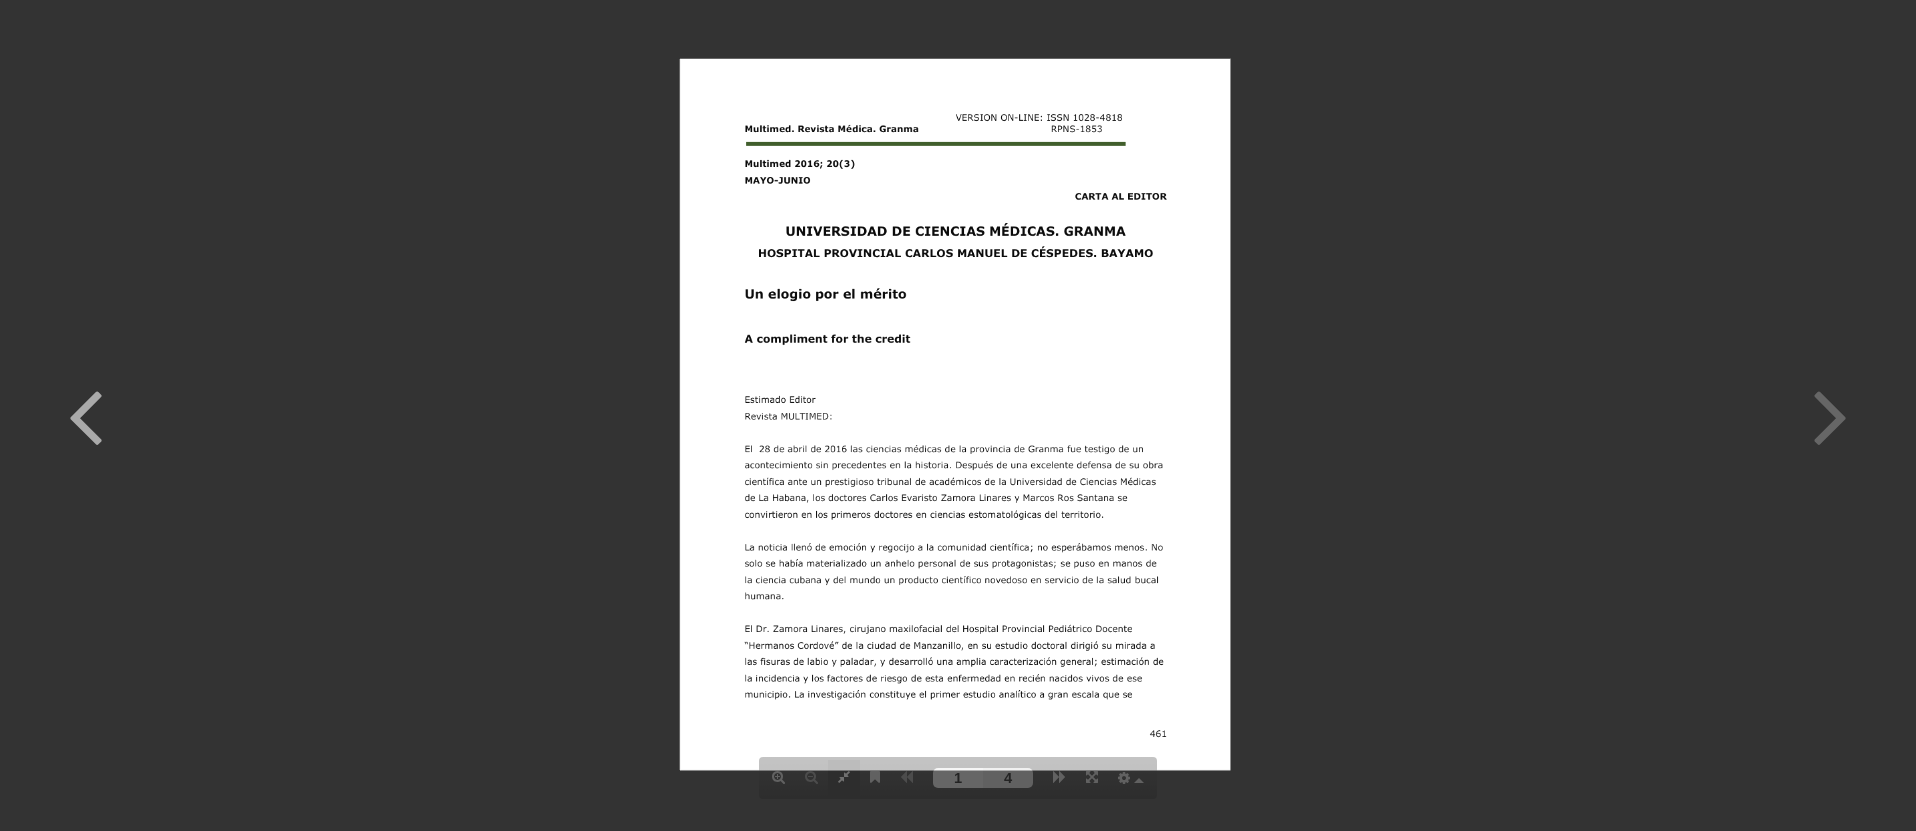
<svg xmlns="http://www.w3.org/2000/svg" width="1916" height="831" viewBox="0 0 1916 831">
  <rect width="100%" height="100%" fill="rgb(51,51,51)"/>
  <image x="70" y="58" width="1776" height="741" href="pic1.png"/>
</svg>
